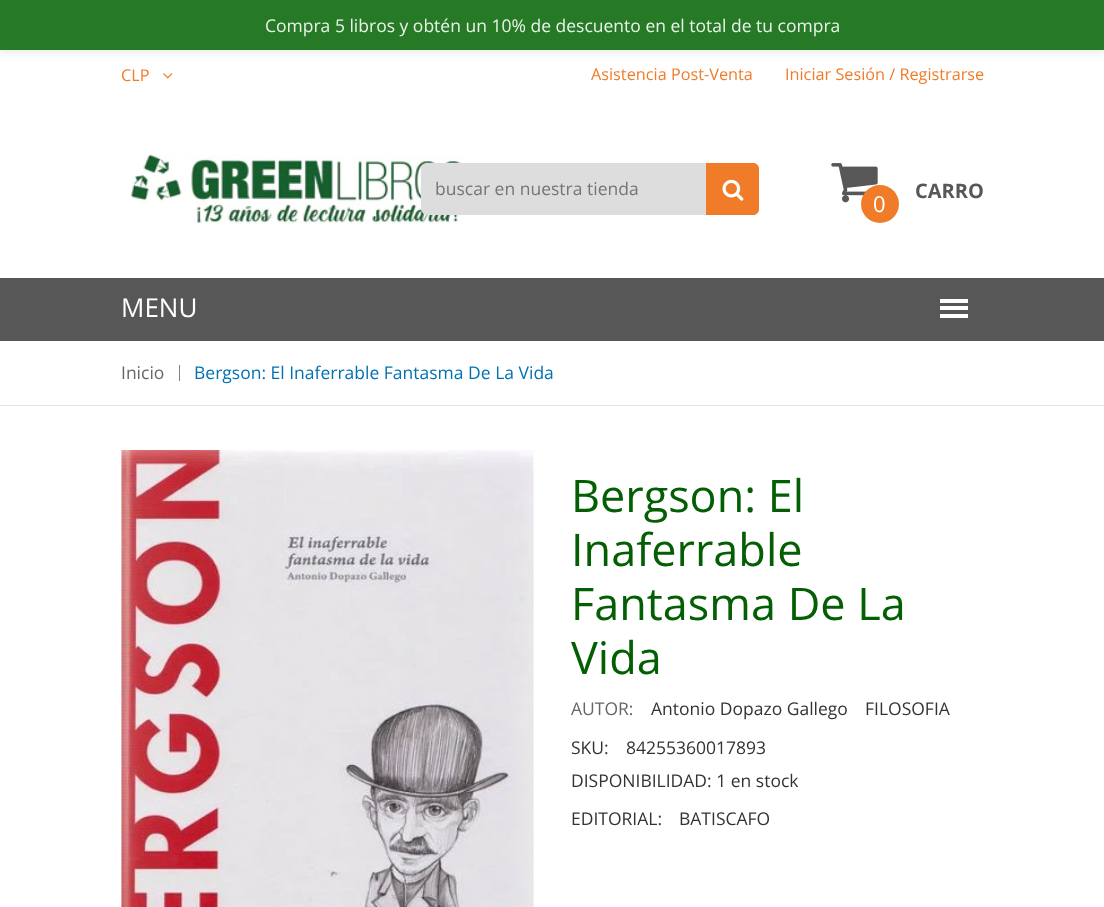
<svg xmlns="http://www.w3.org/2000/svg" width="1104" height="907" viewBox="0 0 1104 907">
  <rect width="100%" height="100%" fill="rgb(255,255,255)"/>
  <rect x="-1" y="-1" width="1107" height="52" fill="rgba(0,0,0,0.11)" filter="blur(5.5px)"/>
  <rect x="0" y="0" width="1104" height="50" fill="rgb(38,122,37)"/>
  <text x="265" y="32" font-family="Open Sans" font-size="17.5" fill="rgb(234,243,234)">Compra 5 libros y obtén un 10% de descuento en el total de tu compra</text>
  <text x="121" y="81" font-family="Open Sans" font-size="16.25" fill="rgb(240,124,41)">CLP</text>
  <image x="163" y="73" width="10" height="6" href="pic1.png"/>
  <g font-family="Open Sans" font-size="16.25" fill="rgb(240,124,41)">
    <text x="591" y="80">Asistencia Post-Venta</text>
    <text x="785" y="80">Iniciar Sesión / Registrarse</text>
  </g>
  <image x="130" y="154" width="339" height="70" href="pic2.png"/>
  <rect x="421.5" y="163.5" width="337" height="51" rx="5.5" fill="rgb(221,221,221)" stroke="rgb(221,221,221)"/>
  <text x="435" y="195" font-family="Open Sans" font-size="17.5" fill="rgb(117,117,117)">buscar en nuestra tienda</text>
  <path d="M706 163H753C756.5 163 759 165.5 759 169V209C759 212.5 756.5 215 753 215H706Z" fill="rgb(240,124,41)"/>
  <image x="722" y="179" width="22" height="22" href="pic3.png"/>
  <image x="831" y="163" width="47" height="40" href="pic4.png"/>
  <text x="915" y="198" font-family="Open Sans" font-size="20" font-weight="bold" fill="rgb(88,87,87)">CARRO</text>
  <circle cx="880" cy="204" r="19" fill="rgb(240,124,41)"/>
  <text x="873" y="212" font-family="Open Sans" font-size="22" fill="rgb(255,255,255)">0</text>
  <rect x="0" y="278" width="1104" height="63" fill="rgb(88,87,87)"/>
  <text x="121" y="317" font-family="Open Sans" font-size="26" fill="rgb(255,255,255)">MENU</text>
  <rect x="940" y="299" width="28" height="4" fill="rgb(255,255,255)"/>
  <rect x="940" y="306" width="28" height="4" fill="rgb(255,255,255)"/>
  <rect x="940" y="314" width="28" height="4" fill="rgb(255,255,255)"/>
  <rect x="0" y="405" width="1104" height="1" fill="rgb(229,229,229)"/>
  <text x="121" y="379" font-family="Open Sans" font-size="17.5" fill="rgb(102,102,102)">Inicio</text>
  <rect x="179" y="365" width="1" height="16" fill="rgb(129,129,129)"/>
  <text x="194" y="379" font-family="Open Sans" font-size="17.5" fill="rgb(0,114,176)">Bergson: El Inaferrable Fantasma De La Vida</text>
  <image x="121" y="450" width="413" height="457" href="pic5.png"/>
  <g font-family="Open Sans" font-size="45" fill="rgb(4,94,4)">
    <text>
      <tspan x="571" y="512">Bergson: El</tspan>
      <tspan x="571" y="566">Inaferrable</tspan>
      <tspan x="571" y="620">Fantasma De La</tspan>
      <tspan x="571" y="674">Vida</tspan>
    </text>
  </g>
  <text x="571" y="715" font-family="Open Sans" font-size="17.5" fill="rgb(102,102,102)">AUTOR:</text>
  <g font-family="Open Sans" font-size="17.5" fill="rgb(51,51,51)">
    <text x="651" y="715">Antonio Dopazo Gallego</text>
    <text x="865" y="715">FILOSOFIA</text>
    <text x="571" y="754">SKU:</text>
    <text x="626" y="754">84255360017893</text>
    <text x="571" y="787">DISPONIBILIDAD: 1 en stock</text>
    <text x="571" y="825">EDITORIAL:</text>
    <text x="679" y="825">BATISCAFO</text>
  </g>
</svg>
